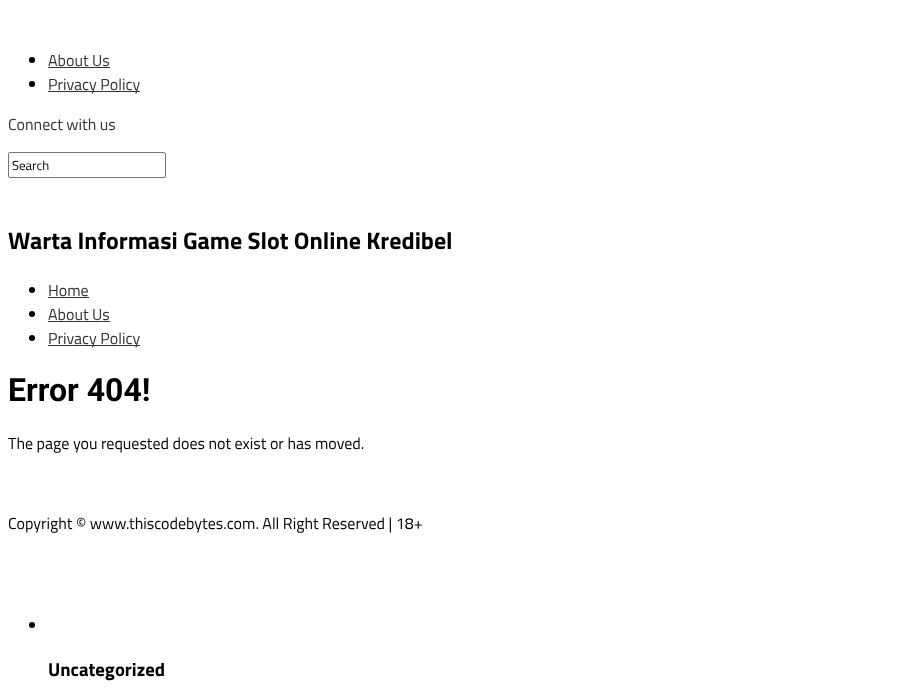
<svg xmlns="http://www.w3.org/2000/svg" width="905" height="692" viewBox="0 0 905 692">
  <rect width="100%" height="100%" fill="rgb(255,255,255)"/>
  <circle cx="32" cy="60" r="3" fill="rgb(0,0,0)"/>
  <text x="48" y="66" font-family="Titillium Web" font-size="16" fill="rgb(51,51,51)">About Us</text>
  <rect x="48" y="67" width="62" height="1" fill="rgb(51,51,51)"/>
  <circle cx="32" cy="84" r="3" fill="rgb(0,0,0)"/>
  <rect x="48" y="91" width="92" height="1" fill="rgb(51,51,51)"/>
  <g font-family="Titillium Web" font-size="16" fill="rgb(51,51,51)">
    <text x="48" y="90">Privacy Policy</text>
    <text x="8" y="130">Connect with us</text>
  </g>
  <rect x="8.5" y="152.5" width="157" height="25" rx="1.5" fill="none" stroke="rgb(118,118,118)"/>
  <text x="12" y="170" font-family="Titillium Web" font-size="13" fill="rgb(0,0,0)">Search</text>
  <text x="8" y="249" font-family="Titillium Web" font-size="24" font-weight="bold" fill="rgb(0,0,0)">Warta Informasi Game Slot Online Kredibel</text>
  <circle cx="32" cy="290" r="3" fill="rgb(0,0,0)"/>
  <text x="48" y="296" font-family="Titillium Web" font-size="16" fill="rgb(51,51,51)">Home</text>
  <rect x="48" y="297" width="41" height="1" fill="rgb(51,51,51)"/>
  <circle cx="32" cy="314" r="3" fill="rgb(0,0,0)"/>
  <text x="48" y="320" font-family="Titillium Web" font-size="16" fill="rgb(51,51,51)">About Us</text>
  <rect x="48" y="321" width="62" height="1" fill="rgb(51,51,51)"/>
  <circle cx="32" cy="338" r="3" fill="rgb(0,0,0)"/>
  <rect x="48" y="345" width="92" height="1" fill="rgb(51,51,51)"/>
  <text x="48" y="344" font-family="Titillium Web" font-size="16" fill="rgb(51,51,51)">Privacy Policy</text>
  <text x="8" y="401" font-family="Roboto" font-size="32" font-weight="bold" fill="rgb(0,0,0)">Error 404!</text>
  <g font-family="Titillium Web" font-size="16" fill="rgb(0,0,0)">
    <text x="8" y="449">The page you requested does not exist or has moved.</text>
    <text x="8" y="529">Copyright © www.thiscodebytes.com. All Right Reserved | 18+</text>
  </g>
  <circle cx="32" cy="625" r="3" fill="rgb(0,0,0)"/>
  <text x="48" y="676" font-family="Titillium Web" font-size="18.75" font-weight="bold" fill="rgb(0,0,0)">Uncategorized</text>
</svg>
